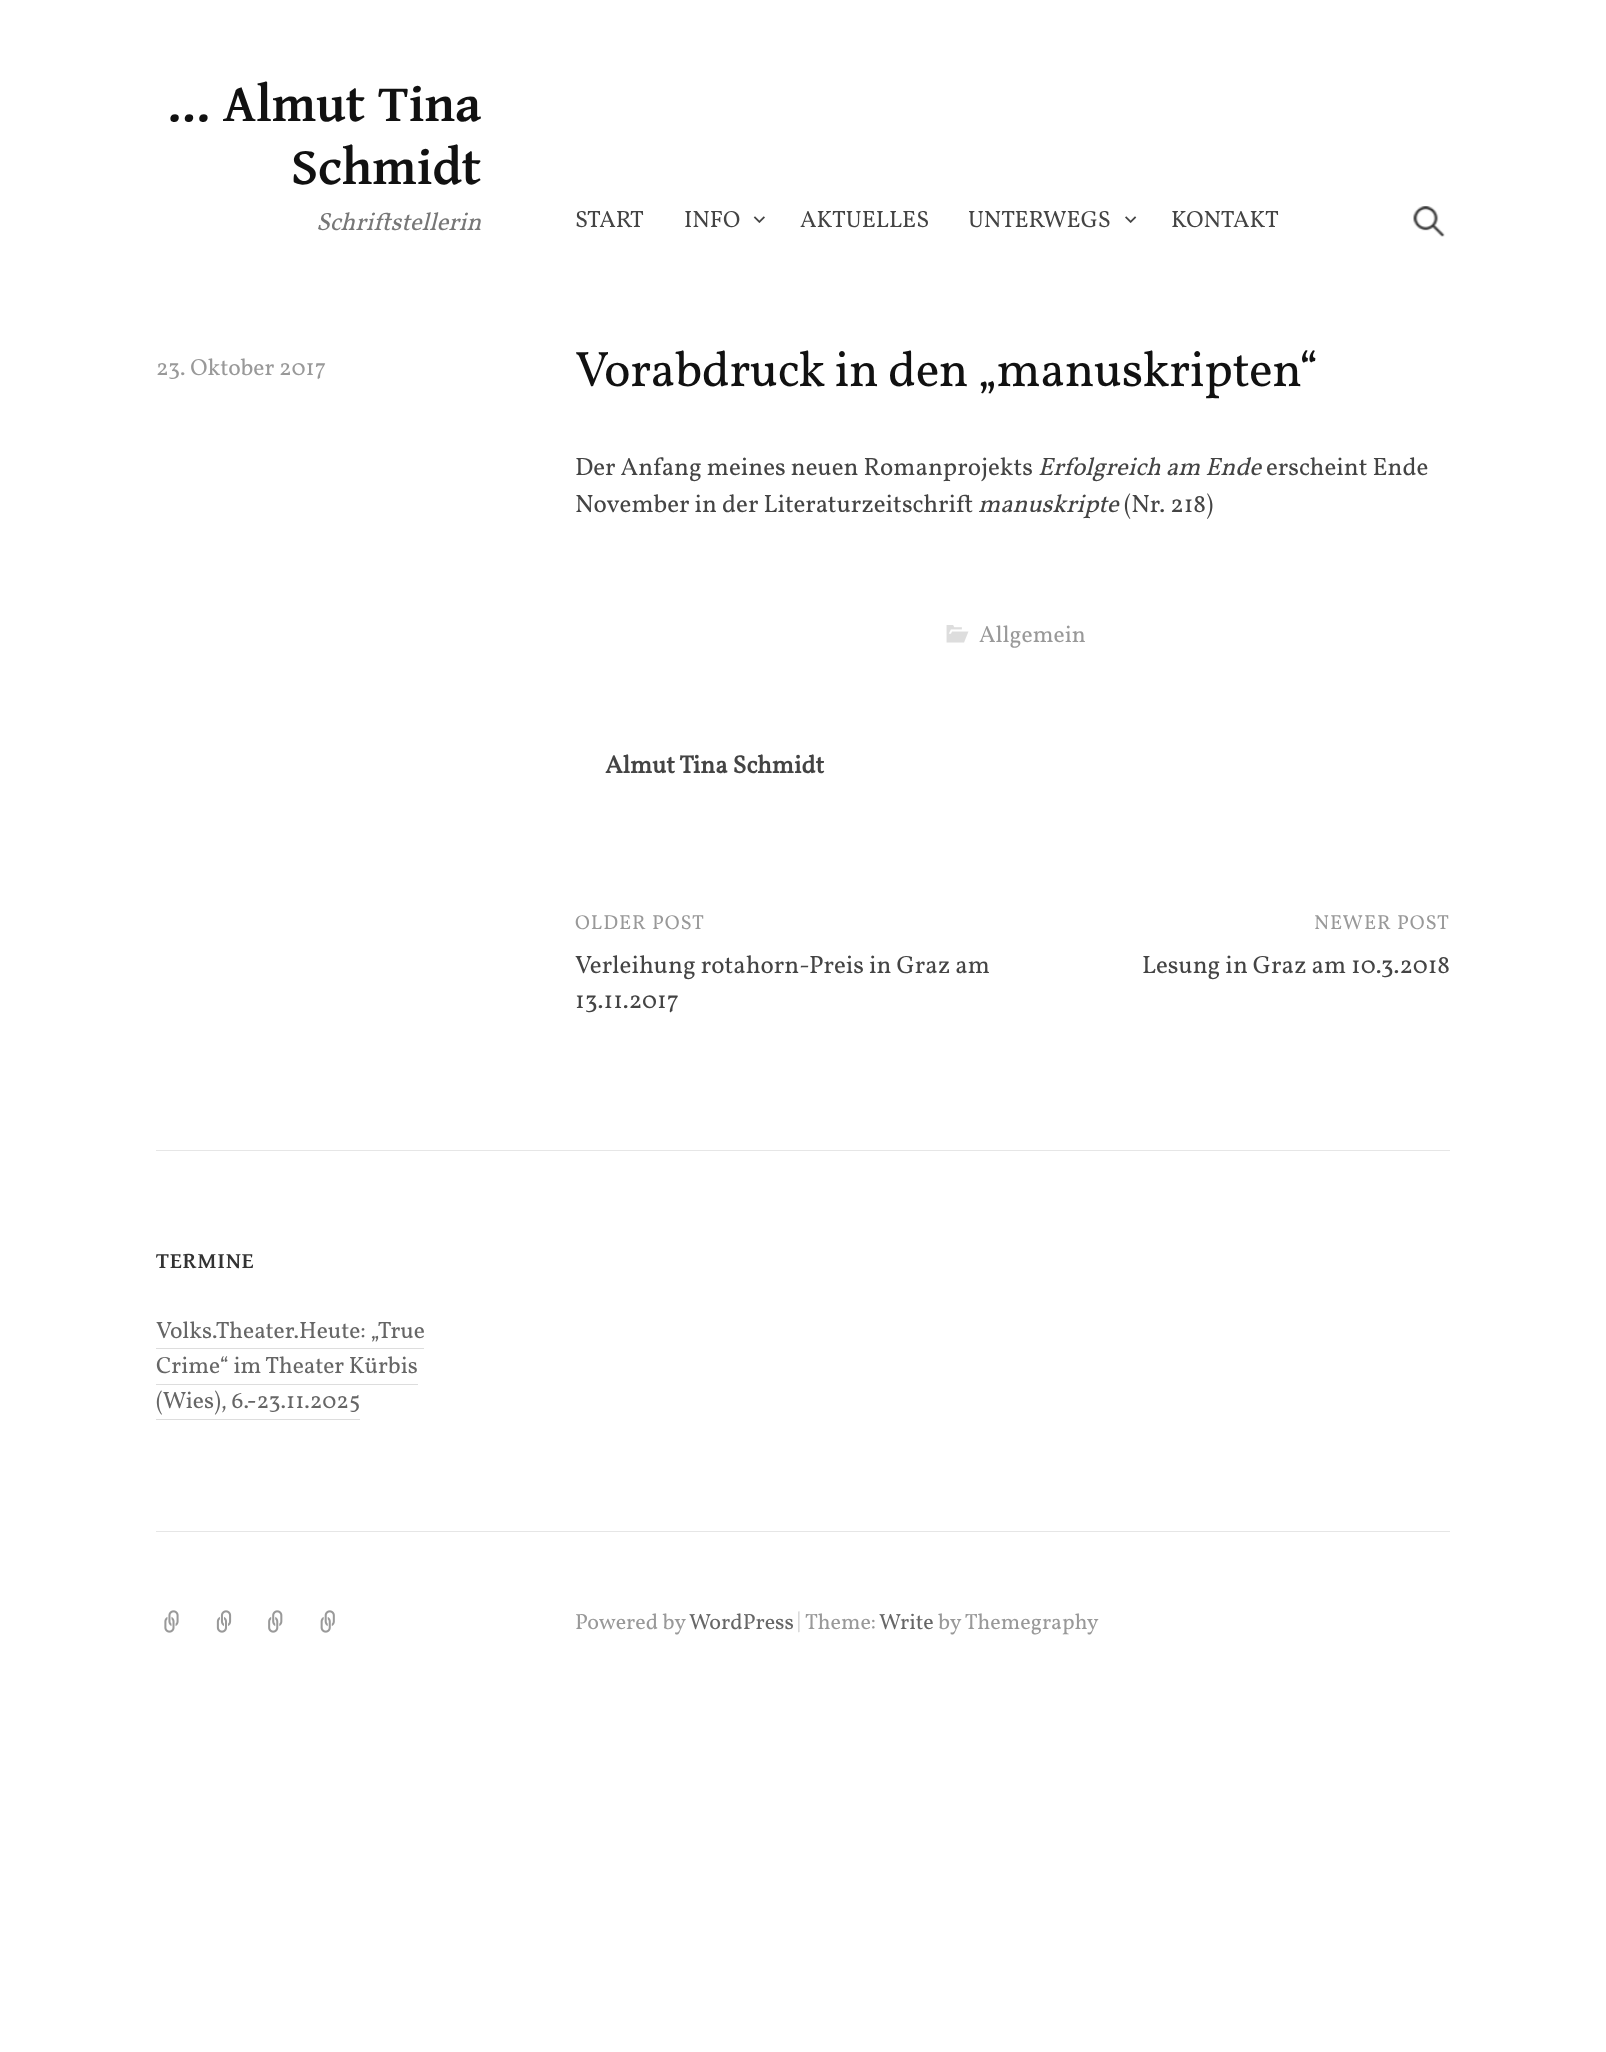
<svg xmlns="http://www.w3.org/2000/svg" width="1606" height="2052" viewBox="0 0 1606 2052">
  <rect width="100%" height="100%" fill="rgb(255,255,255)"/>
  <g font-family="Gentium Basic" font-size="52.5" font-weight="bold" fill="rgb(17,17,17)">
    <text x="167" y="121">… Almut Tina</text>
    <text x="291" y="184">Schmidt</text>
  </g>
  <text x="316" y="230" font-family="Vollkorn" font-size="25" font-style="italic" fill="rgb(119,119,119)">Schriftstellerin</text>
  <g font-family="Vollkorn" font-size="23.5" fill="rgb(68,68,68)">
    <text x="575" y="227">START</text>
    <text x="684" y="227">INFO</text>
  </g>
  <image x="753" y="216" width="12" height="7" href="pic1.png"/>
  <g font-family="Vollkorn" font-size="23.5" fill="rgb(68,68,68)">
    <text x="800" y="227">AKTUELLES</text>
    <text x="968" y="227">UNTERWEGS</text>
  </g>
  <image x="1125" y="216" width="12" height="7" href="pic2.png"/>
  <text x="1171" y="227" font-family="Vollkorn" font-size="23.5" fill="rgb(68,68,68)">KONTAKT</text>
  <image x="1413" y="206" width="32" height="31" href="pic3.png"/>
  <text x="156" y="375" font-family="Vollkorn" font-size="23.5" fill="rgb(153,153,153)">23. Oktober 2017</text>
  <text x="575" y="386" font-family="Vollkorn" font-size="50" letter-spacing="-0.5" fill="rgb(17,17,17)">Vorabdruck in den „manuskripten“</text>
  <text x="575" y="475" font-family="Vollkorn" font-size="25" fill="rgb(68,68,68)">Der Anfang meines neuen Romanprojekts</text>
  <text x="1038" y="475" font-family="Vollkorn" font-size="25" font-style="italic" fill="rgb(68,68,68)">Erfolgreich am Ende</text>
  <g font-family="Vollkorn" font-size="25" fill="rgb(68,68,68)">
    <text x="1266" y="475">erscheint Ende</text>
    <text x="575" y="512">November in der Literaturzeitschrift</text>
  </g>
  <text x="978" y="512" font-family="Vollkorn" font-size="25" font-style="italic" fill="rgb(68,68,68)">manuskripte</text>
  <text x="1124" y="512" font-family="Vollkorn" font-size="25" fill="rgb(68,68,68)">(Nr. 218)</text>
  <image x="946" y="625" width="23" height="18" href="pic4.png"/>
  <text x="979" y="642" font-family="Vollkorn" font-size="23.5" fill="rgb(153,153,153)">Allgemein</text>
  <text x="605" y="773" font-family="Vollkorn" font-size="25" font-weight="bold" fill="rgb(68,68,68)">Almut Tina Schmidt</text>
  <text x="575" y="929" font-family="Vollkorn" font-size="20.25" letter-spacing="1" fill="rgb(153,153,153)">OLDER POST</text>
  <g font-family="Vollkorn" font-size="25" fill="rgb(68,68,68)">
    <text>
      <tspan x="575" y="973">Verleihung rotahorn-Preis in Graz am</tspan>
      <tspan x="575" y="1008">13.11.2017</tspan>
    </text>
  </g>
  <text x="1314" y="929" font-family="Vollkorn" font-size="20.25" letter-spacing="1" fill="rgb(153,153,153)">NEWER POST</text>
  <text x="1142" y="973" font-family="Vollkorn" font-size="25" fill="rgb(68,68,68)">Lesung in Graz am 10.3.2018</text>
  <rect x="156" y="1150" width="1294" height="1" fill="rgb(230,230,230)"/>
  <text x="156" y="1268" font-family="Gentium Basic" font-size="22.5" font-weight="bold" letter-spacing="1" fill="rgb(51,51,51)">TERMINE</text>
  <g font-family="Vollkorn" font-size="23.5" fill="rgb(102,102,102)">
    <text>
      <tspan x="156" y="1338">Volks.Theater.Heute: „True</tspan>
      <tspan x="156" y="1373">Crime“ im Theater Kürbis</tspan>
    </text>
  </g>
  <rect x="156" y="1348" width="268" height="1" fill="rgb(221,221,221)"/>
  <text x="156" y="1408" font-family="Vollkorn" font-size="23.5" fill="rgb(102,102,102)">(Wies), 6.-23.11.2025</text>
  <rect x="156" y="1384" width="262" height="1" fill="rgb(221,221,221)"/>
  <rect x="156" y="1419" width="204" height="1" fill="rgb(221,221,221)"/>
  <rect x="156" y="1531" width="1294" height="1" fill="rgb(230,230,230)"/>
  <image x="164" y="1610" width="15" height="23" href="pic5.png"/>
  <image x="216" y="1610" width="16" height="23" href="pic6.png"/>
  <image x="268" y="1610" width="15" height="23" href="pic7.png"/>
  <image x="320" y="1610" width="15" height="23" href="pic8.png"/>
  <text x="575" y="1629" font-family="Vollkorn" font-size="22" fill="rgb(153,153,153)">Powered by</text>
  <text x="689" y="1629" font-family="Vollkorn" font-size="22" fill="rgb(102,102,102)">WordPress</text>
  <text x="797" y="1627" font-family="Vollkorn" font-size="22" fill="rgb(204,204,204)">|</text>
  <text x="805" y="1629" font-family="Vollkorn" font-size="22" fill="rgb(153,153,153)">Theme:</text>
  <text x="879" y="1629" font-family="Vollkorn" font-size="22" fill="rgb(102,102,102)">Write</text>
  <text x="938" y="1629" font-family="Vollkorn" font-size="22" fill="rgb(153,153,153)">by Themegraphy</text>
</svg>
